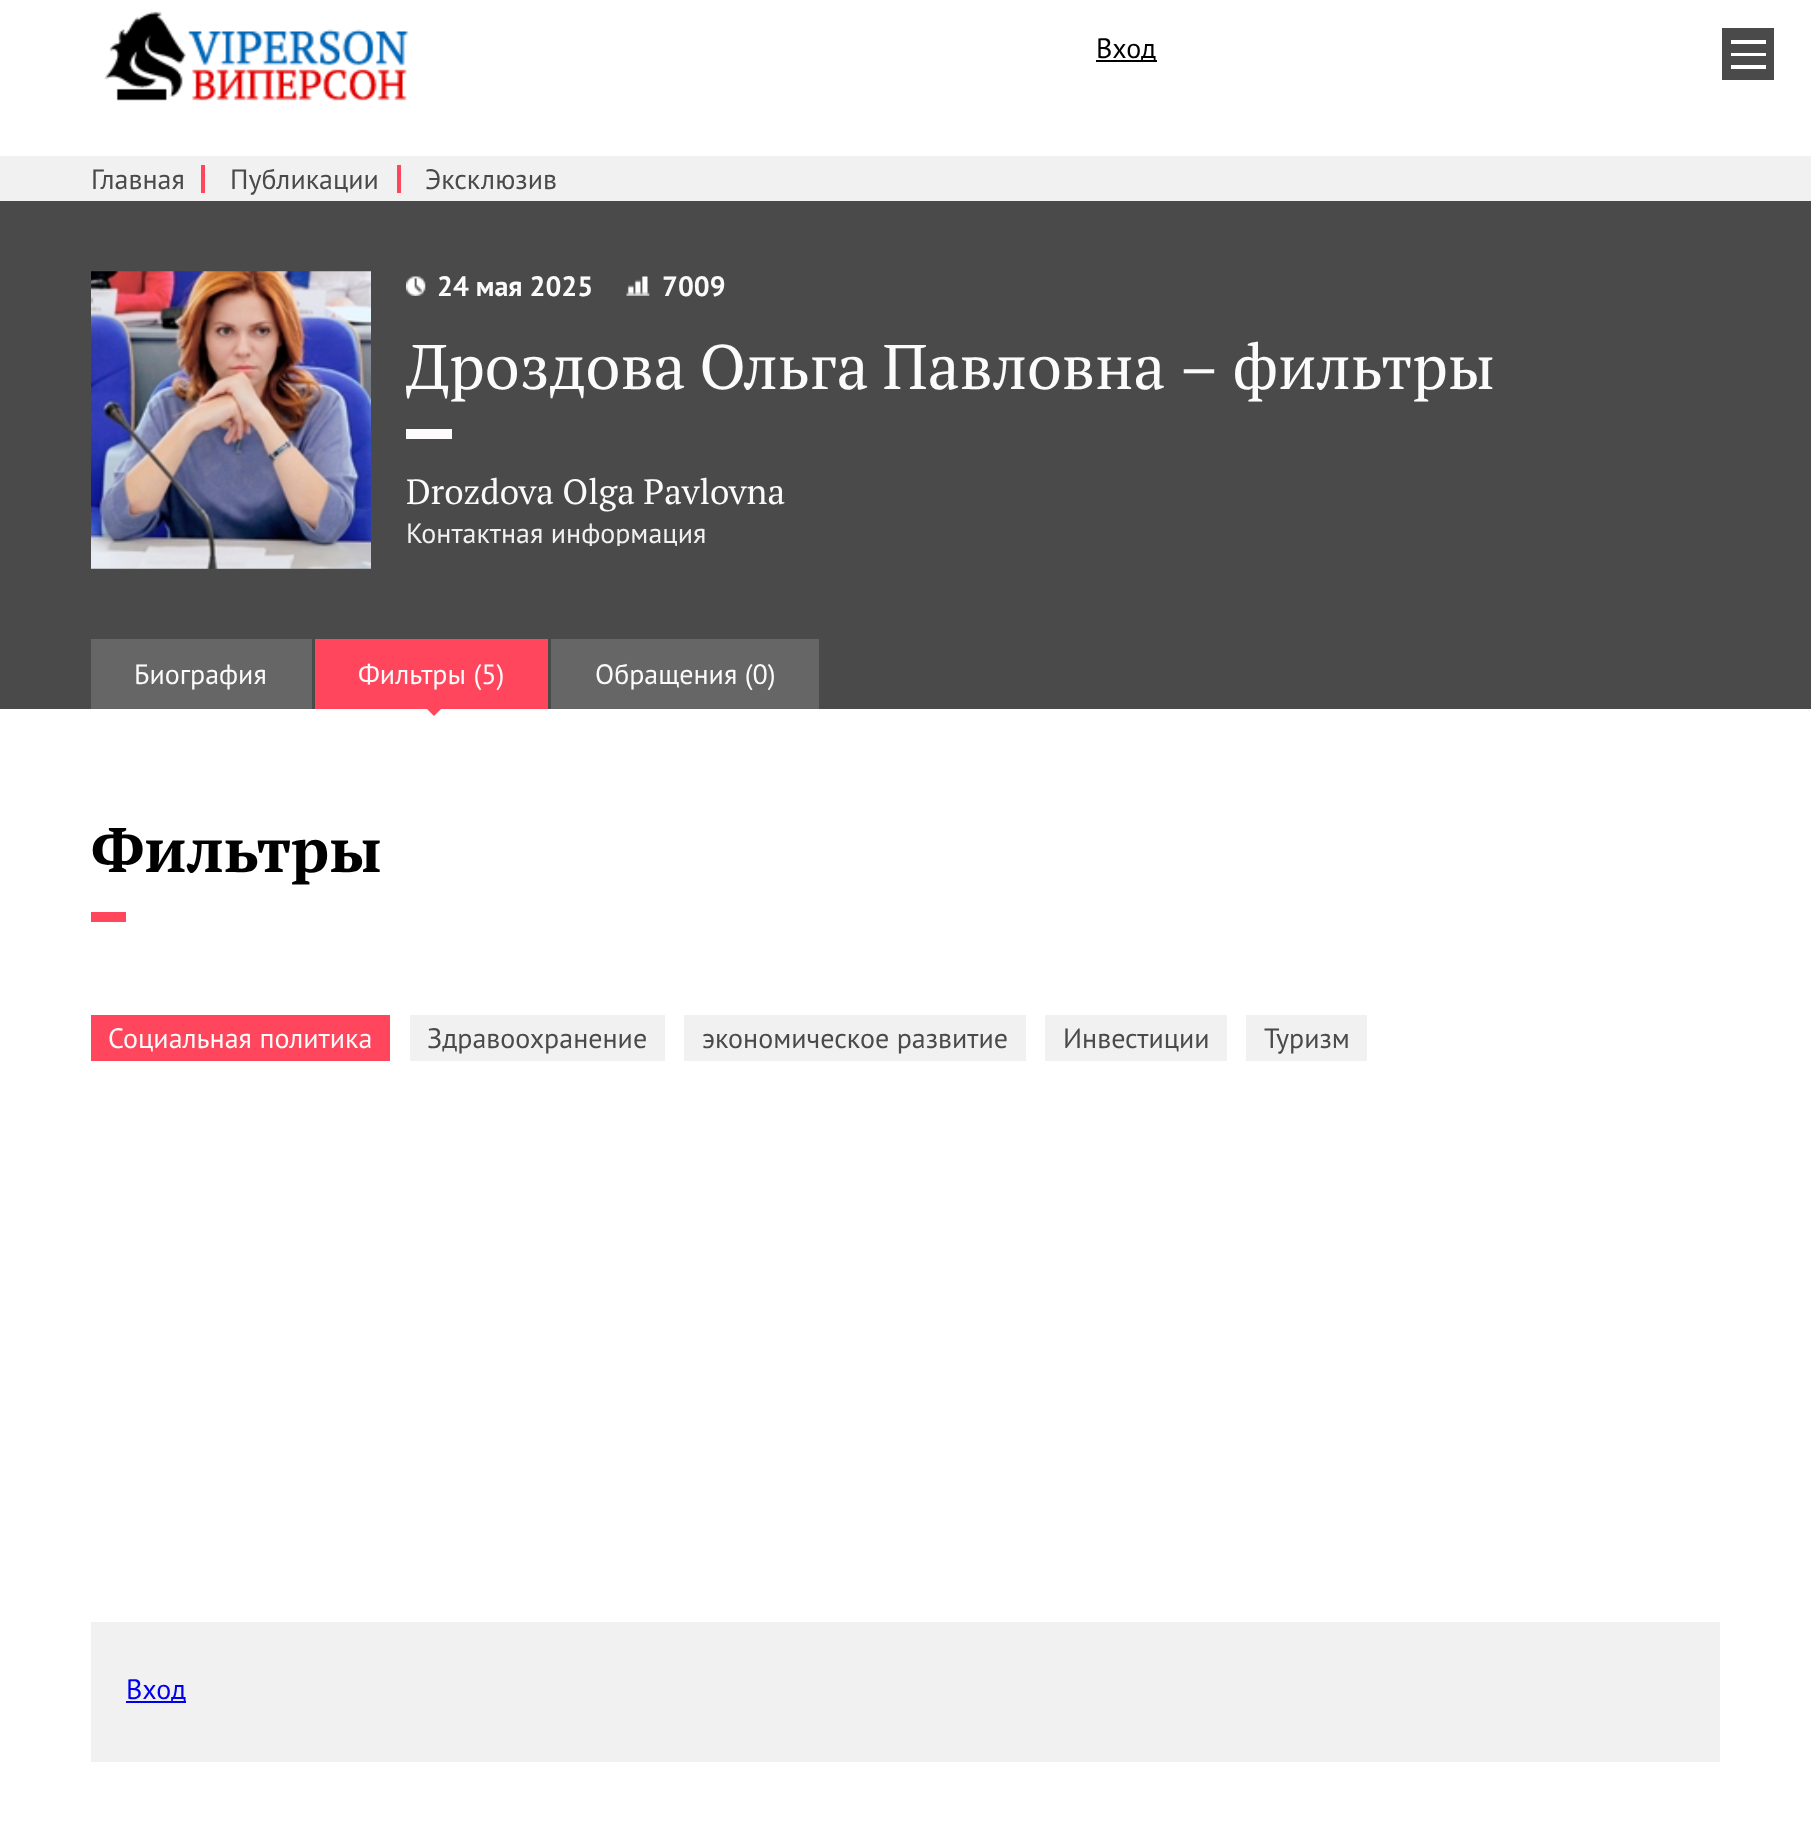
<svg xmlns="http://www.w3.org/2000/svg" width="1811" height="1841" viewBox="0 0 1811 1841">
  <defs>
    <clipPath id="clip1"><rect x="406" y="271" width="1314" height="275"/></clipPath>
  </defs>
  <rect width="100%" height="100%" fill="rgb(255,255,255)"/>
  <image x="104" y="11" width="305" height="90" href="pic1.png"/>
  <rect x="1722" y="28" width="52" height="52" fill="rgb(74,74,74)"/>
  <rect x="1731" y="40" width="35" height="4" fill="rgb(255,255,255)"/>
  <rect x="1731" y="65" width="35" height="4" fill="rgb(255,255,255)"/>
  <rect x="1731" y="53" width="35" height="3" fill="rgb(255,255,255)"/>
  <rect x="1096" y="60" width="61" height="2" fill="rgb(0,0,0)"/>
  <text x="1096" y="58" font-family="PT Sans" font-size="28" fill="rgb(0,0,0)">Вход</text>
  <rect x="0" y="156" width="1811" height="45" fill="rgb(241,241,241)"/>
  <rect x="201" y="165" width="4" height="28" fill="rgb(255,70,93)"/>
  <text x="91" y="189" font-family="PT Sans" font-size="28" fill="rgb(74,74,74)">Главная</text>
  <rect x="397" y="165" width="4" height="28" fill="rgb(255,70,93)"/>
  <g font-family="PT Sans" font-size="28" fill="rgb(74,74,74)">
    <text x="230" y="189">Публикации</text>
    <text x="425" y="189">Эксклюзив</text>
  </g>
  <rect x="0" y="201" width="1811" height="508" fill="rgb(74,74,74)"/>
  <image x="91" y="271" width="280" height="298" href="pic2.png"/>
  <image x="406" y="276" width="20" height="20" href="pic3.png"/>
  <text x="437" y="296" font-family="PT Sans" font-size="28" font-weight="bold" fill="rgb(251,251,251)">24 мая 2025</text>
  <image x="626" y="276" width="24" height="20" href="pic4.png"/>
  <text x="662" y="296" font-family="PT Sans" font-size="28" font-weight="bold" fill="rgb(251,251,251)">7009</text>
  <g clip-path="url(#clip1)">
    <text x="406" y="389" word-spacing="-1.5" font-family="PT Serif" font-size="63" fill="rgb(251,251,251)">Дроздова Ольга Павловна – фильтры</text>
  </g>
  <rect x="406" y="429" width="46" height="10" fill="rgb(253,251,251)"/>
  <text x="406" y="504" font-family="PT Serif" font-size="35" fill="rgb(251,251,251)">Drozdova Olga Pavlovna</text>
  <g clip-path="url(#clip1)">
    <text x="406" y="543" font-family="PT Sans" font-size="28" fill="rgb(241,241,241)">Контактная информация</text>
  </g>
  <rect x="91" y="639" width="221" height="70" fill="rgb(102,102,102)"/>
  <text x="134" y="684" font-family="PT Sans" font-size="28" fill="rgb(251,251,251)">Биография</text>
  <rect x="315" y="639" width="233" height="70" fill="rgb(255,70,93)"/>
  <text x="358" y="684" font-family="PT Sans" font-size="28" fill="rgb(251,251,251)">Фильтры (5)</text>
  <path d="M427 709H441L434 716Z" fill="rgb(255,70,93)"/>
  <rect x="551" y="639" width="268" height="70" fill="rgb(102,102,102)"/>
  <text x="595" y="684" font-family="PT Sans" font-size="28" fill="rgb(251,251,251)">Обращения (0)</text>
  <text x="91" y="872" font-family="PT Serif" font-size="63" font-weight="bold" fill="rgb(0,0,0)">Фильтры</text>
  <rect x="91" y="912" width="35" height="10" fill="rgb(255,70,93)"/>
  <rect x="91" y="1015" width="299" height="46" fill="rgb(255,70,93)"/>
  <text x="108" y="1048" font-family="PT Sans" font-size="28" fill="rgb(251,251,251)">Социальная политика</text>
  <rect x="410" y="1015" width="255" height="46" fill="rgb(241,241,241)"/>
  <text x="427" y="1048" font-family="PT Sans" font-size="28" fill="rgb(74,74,74)">Здравоохранение</text>
  <rect x="684" y="1015" width="342" height="46" fill="rgb(241,241,241)"/>
  <text x="702" y="1048" font-family="PT Sans" font-size="28" fill="rgb(74,74,74)">экономическое развитие</text>
  <rect x="1045" y="1015" width="182" height="46" fill="rgb(241,241,241)"/>
  <text x="1063" y="1048" font-family="PT Sans" font-size="28" fill="rgb(74,74,74)">Инвестиции</text>
  <rect x="1246" y="1015" width="121" height="46" fill="rgb(241,241,241)"/>
  <text x="1264" y="1048" font-family="PT Sans" font-size="28" fill="rgb(74,74,74)">Туризм</text>
  <rect x="91" y="1622" width="1629" height="140" fill="rgb(241,241,241)"/>
  <rect x="126" y="1701" width="60" height="2" fill="rgb(0,0,238)"/>
  <text x="126" y="1699" font-family="PT Sans" font-size="28" fill="rgb(0,0,238)">Вход</text>
</svg>
